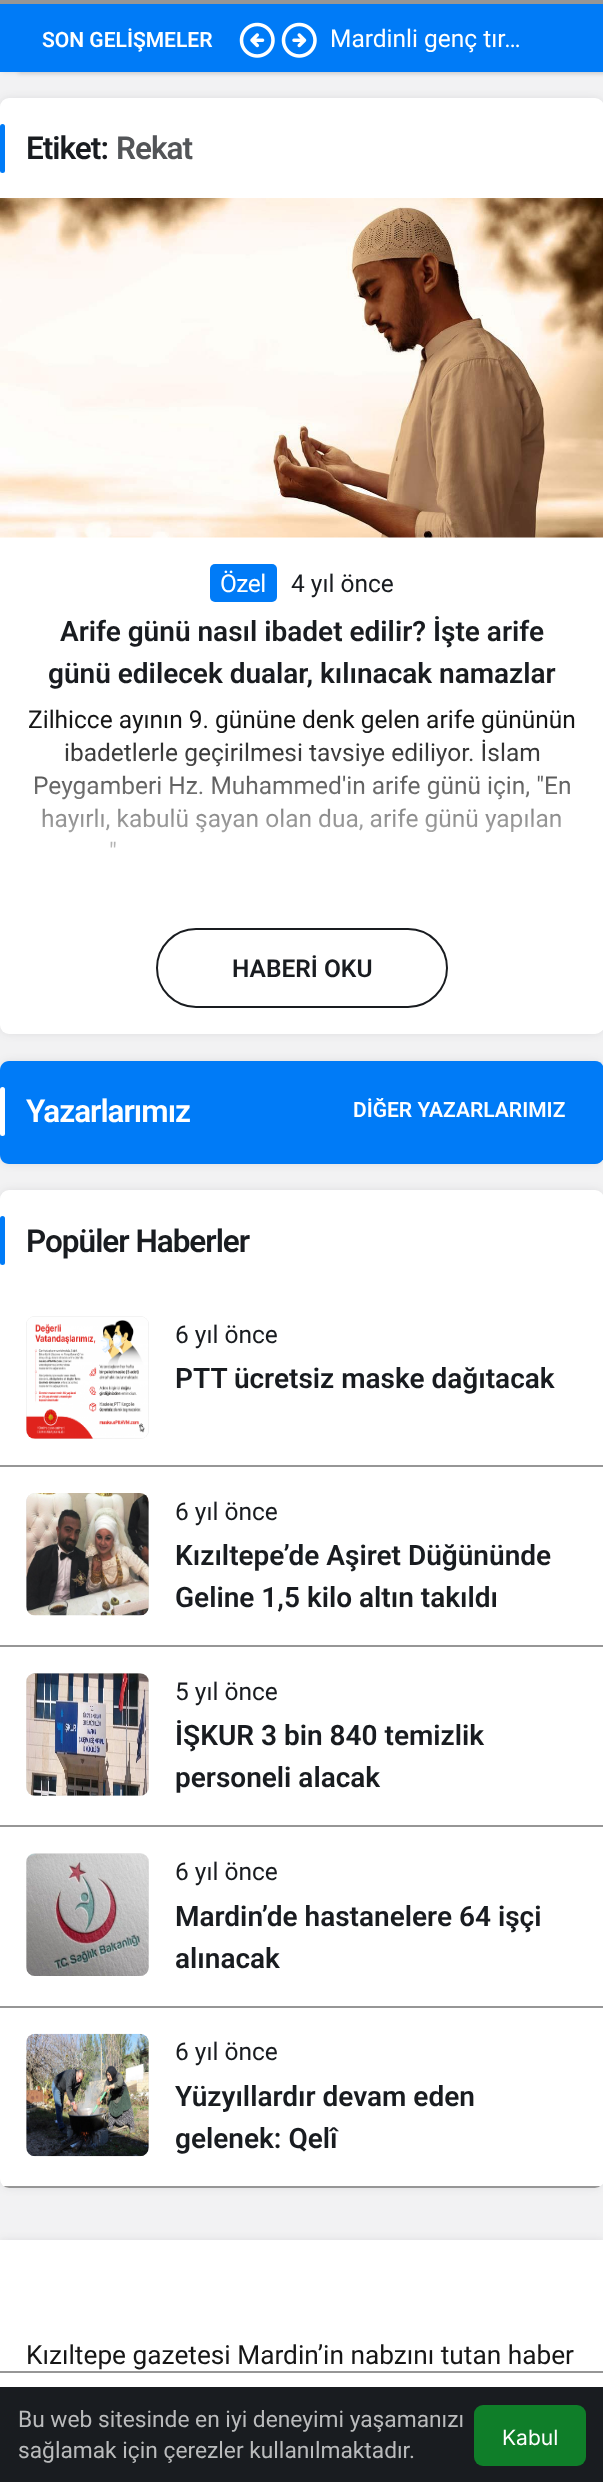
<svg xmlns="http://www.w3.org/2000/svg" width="603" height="2482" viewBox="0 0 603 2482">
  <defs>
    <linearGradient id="g1" gradientUnits="userSpaceOnUse" x1="302" y1="726" x2="302" y2="901"><stop offset="0" stop-color="rgb(255,255,255)" stop-opacity="0"/><stop offset="1" stop-color="rgb(255,255,255)"/></linearGradient>
    <clipPath id="clip1"><rect x="0" y="1190" width="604" height="998" rx="9"/></clipPath>
  </defs>
  <rect width="100%" height="100%" fill="rgb(242,242,243)"/>
  <rect x="2" y="-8" width="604" height="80" fill="rgba(0,0,0,0.1)" filter="blur(2.5px)"/>
  <rect x="18" y="4" width="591" height="70" fill="rgba(0,0,0,0.1)" filter="blur(2px)"/>
  <rect x="0" y="4" width="603" height="68" fill="rgb(0,123,247)"/>
  <rect x="0" y="0" width="603" height="4" fill="rgb(150,150,150)"/>
  <text x="42" y="47" font-family="Roboto" font-size="21" font-weight="600" fill="rgb(255,255,255)">SON GELİŞMELER</text>
  <image x="239" y="22" width="36" height="36" href="pic1.png"/>
  <image x="281" y="22" width="36" height="36" href="pic2.png"/>
  <text x="330" y="47" font-family="Roboto" font-size="24.5" fill="rgb(255,255,255)">Mardinli genç tır…</text>
  <rect x="0" y="98" width="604" height="936" rx="9" fill="rgba(50,53,61,0.1)" filter="blur(4.5px)"/>
  <rect x="0" y="98" width="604" height="936" rx="9" fill="rgb(255,255,255)"/>
  <rect x="0" y="124" width="5" height="49" rx="2.5" fill="rgb(0,123,247)"/>
  <text x="26" y="159" font-family="Roboto" font-size="31.5" font-weight="600" letter-spacing="-1" fill="rgb(25,28,32)">Etiket:</text>
  <text x="116" y="159" font-family="Roboto" font-size="31.5" font-weight="600" letter-spacing="-1" fill="rgb(83,85,88)">Rekat</text>
  <image x="0" y="198" width="603" height="340" href="pic3.png"/>
  <rect x="210" y="564" width="67" height="38" rx="5" fill="rgb(0,123,247)"/>
  <text x="220" y="592" font-family="Roboto" font-size="24.5" letter-spacing="-0.5" fill="rgb(255,255,255)">Özel</text>
  <text x="291" y="592" font-family="Roboto" font-size="24.5" fill="rgb(25,28,32)">4 yıl önce</text>
  <g font-family="Roboto" font-size="28" font-weight="600" fill="rgb(25,28,32)">
    <text x="60" y="641">Arife günü nasıl ibadet edilir? İşte arife</text>
    <text x="48" y="683">günü edilecek dualar, kılınacak namazlar</text>
  </g>
  <g font-family="Roboto" font-size="24.5" fill="rgb(22,22,22)">
    <text x="28" y="728">Zilhicce ayının 9. gününe denk gelen arife gününün</text>
    <text x="64" y="761">ibadetlerle geçirilmesi tavsiye ediliyor. İslam</text>
    <text x="33" y="794">Peygamberi Hz. Muhammed'in arife günü için, "En</text>
    <text x="41" y="827">hayırlı, kabulü şayan olan dua, arife günü yapılan</text>
    <text x="109" y="860">"</text>
  </g>
  <rect x="34" y="730" width="536" height="118" fill="url(#g1)"/>
  <rect x="157" y="929" width="290" height="78" rx="39" fill="none" stroke="rgb(25,28,32)" stroke-width="2"/>
  <text x="232" y="977" font-family="Roboto" font-size="24.5" font-weight="600" fill="rgb(25,28,32)">HABERİ OKU</text>
  <rect x="0" y="1061" width="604" height="103" rx="9" fill="rgba(50,53,61,0.1)" filter="blur(4.5px)"/>
  <path d="M9 1061C4 1061 0 1065 0 1070V1155C0 1160 4 1164 9 1164H595C600 1164 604 1160 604 1155V1070C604 1065 600 1061 595 1061Z" fill="rgb(0,123,247)"/>
  <rect x="0" y="1087" width="5" height="49" rx="2.5" fill="rgb(255,255,255)"/>
  <text x="26" y="1122" font-family="Roboto" font-size="31.5" font-weight="600" letter-spacing="-1" fill="rgb(255,255,255)">Yazarlarımız</text>
  <text x="353" y="1117" font-family="Roboto" font-size="21" font-weight="600" fill="rgb(255,255,255)">DİĞER YAZARLARIMIZ</text>
  <rect x="0" y="1190" width="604" height="998" rx="9" fill="rgba(50,53,61,0.1)" filter="blur(4.5px)"/>
  <rect x="0" y="1190" width="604" height="998" rx="9" fill="rgb(255,255,255)"/>
  <rect x="0" y="1216" width="5" height="49" rx="2.5" fill="rgb(0,123,247)"/>
  <text x="26" y="1252" font-family="Roboto" font-size="31.5" font-weight="600" letter-spacing="-1" fill="rgb(25,28,32)">Popüler Haberler</text>
  <rect x="0" y="1465" width="603" height="2" fill="rgb(150,150,150)"/>
  <rect x="26" y="1316" width="123" height="123" rx="9" fill="rgb(230,230,230)"/>
  <image x="26" y="1316" width="123" height="123" href="pic4.png"/>
  <text x="175" y="1343" font-family="Roboto" font-size="24.5" fill="rgb(25,28,32)">6 yıl önce</text>
  <text x="175" y="1388" font-family="Roboto" font-size="28" font-weight="600" fill="rgb(25,28,32)">PTT ücretsiz maske dağıtacak</text>
  <rect x="0" y="1645" width="603" height="2" fill="rgb(150,150,150)"/>
  <rect x="26" y="1493" width="123" height="122" rx="9" fill="rgb(230,230,230)"/>
  <image x="26" y="1493" width="123" height="123" href="pic5.png"/>
  <text x="175" y="1520" font-family="Roboto" font-size="24.5" fill="rgb(25,28,32)">6 yıl önce</text>
  <g font-family="Roboto" font-size="28" font-weight="600" fill="rgb(25,28,32)">
    <text>
      <tspan x="175" y="1565">Kızıltepe’de Aşiret Düğününde</tspan>
      <tspan x="175" y="1607">Geline 1,5 kilo altın takıldı</tspan>
    </text>
  </g>
  <rect x="0" y="1825" width="603" height="2" fill="rgb(150,150,150)"/>
  <rect x="26" y="1673" width="123" height="123" rx="9" fill="rgb(230,230,230)"/>
  <image x="26" y="1673" width="123" height="123" href="pic6.png"/>
  <text x="175" y="1700" font-family="Roboto" font-size="24.5" fill="rgb(25,28,32)">5 yıl önce</text>
  <g font-family="Roboto" font-size="28" font-weight="600" fill="rgb(25,28,32)">
    <text>
      <tspan x="175" y="1745">İŞKUR 3 bin 840 temizlik</tspan>
      <tspan x="175" y="1787">personeli alacak</tspan>
    </text>
  </g>
  <rect x="0" y="2006" width="603" height="2" fill="rgb(150,150,150)"/>
  <rect x="26" y="1853" width="123" height="123" rx="9" fill="rgb(230,230,230)"/>
  <image x="26" y="1853" width="123" height="123" href="pic7.png"/>
  <text x="175" y="1880" font-family="Roboto" font-size="24.5" fill="rgb(25,28,32)">6 yıl önce</text>
  <g font-family="Roboto" font-size="28" font-weight="600" fill="rgb(25,28,32)">
    <text>
      <tspan x="175" y="1926">Mardin’de hastanelere 64 işçi</tspan>
      <tspan x="175" y="1968">alınacak</tspan>
    </text>
  </g>
  <g clip-path="url(#clip1)">
    <rect x="0" y="2186" width="603" height="2" fill="rgb(150,150,150)"/>
  </g>
  <rect x="26" y="2034" width="123" height="122" rx="9" fill="rgb(230,230,230)"/>
  <image x="26" y="2033" width="123" height="124" href="pic8.png"/>
  <text x="175" y="2060" font-family="Roboto" font-size="24.5" fill="rgb(25,28,32)">6 yıl önce</text>
  <g font-family="Roboto" font-size="28" font-weight="600" fill="rgb(25,28,32)">
    <text>
      <tspan x="175" y="2106">Yüzyıllardır devam eden</tspan>
      <tspan x="175" y="2148">gelenek: Qelî</tspan>
    </text>
  </g>
  <rect x="0" y="2240" width="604" height="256" fill="rgba(50,53,61,0.1)" filter="blur(4.5px)"/>
  <rect x="0" y="2240" width="603" height="131" fill="rgb(255,255,255)"/>
  <text x="26" y="2364" font-family="Roboto" font-size="26.25" fill="rgb(22,22,22)">Kızıltepe gazetesi Mardin’in nabzını tutan haber</text>
  <rect x="0" y="2387" width="603" height="95" fill="rgb(25,28,32)"/>
  <g font-family="Roboto" font-size="22.75" fill="rgb(186,187,188)">
    <text>
      <tspan x="18" y="2427">Bu web sitesinde en iyi deneyimi yaşamanızı</tspan>
      <tspan x="18" y="2458">sağlamak için çerezler kullanılmaktadır.</tspan>
    </text>
  </g>
  <rect x="474" y="2405" width="112" height="61" rx="9" fill="rgb(15,126,41)"/>
  <text x="502" y="2445" font-family="Inter" font-size="21" fill="rgb(255,255,255)">Kabul</text>
  <rect x="0" y="2373" width="603" height="14" fill="rgb(255,255,255)"/>
  <rect x="0" y="2371" width="603" height="2" fill="rgb(150,150,150)"/>
</svg>
